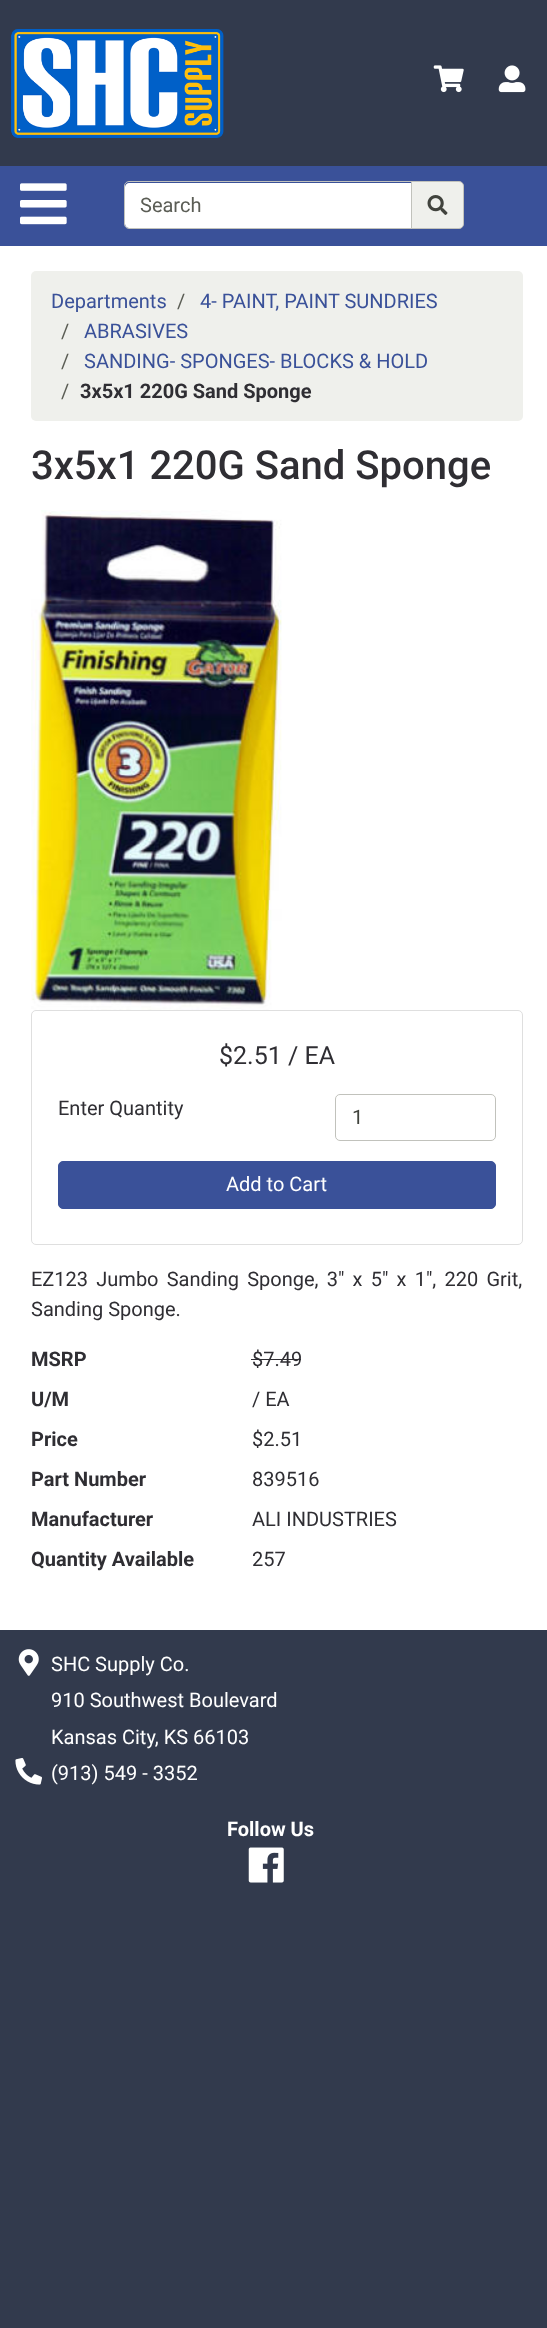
<svg xmlns="http://www.w3.org/2000/svg" width="547" height="2328" viewBox="0 0 547 2328">
  <rect width="100%" height="100%" fill="rgb(50,58,77)"/>
  <rect x="0" y="246" width="547" height="1384" fill="rgb(255,255,255)"/>
  <image x="11" y="29" width="213" height="109" href="pic1.png"/>
  <image x="433" y="65" width="31" height="28" href="pic2.png"/>
  <image x="498" y="65" width="28" height="28" href="pic3.png"/>
  <rect x="0" y="166" width="547" height="80" fill="rgb(58,81,153)"/>
  <image x="20" y="183" width="47" height="42" href="pic4.png"/>
  <path d="M129 183H411V228H129C127 228 125 226 125 224V187C125 185 127 183 129 183Z" fill="rgb(255,255,255)"/>
  <path d="M129 181.5H412.5V228.5H129C126.5 228.5 124.5 226.5 124.5 224V186C124.5 183.5 126.5 181.5 129 181.5Z" fill="none" stroke="rgb(193,194,188)"/>
  <text x="140" y="212" font-family="Roboto" font-size="20" fill="rgb(91,93,85)">Search</text>
  <path d="M411.5 181.5H459C461.5 181.5 463.5 183.5 463.5 186V224C463.5 226.5 461.5 228.5 459 228.5H411.5Z" fill="rgb(239,240,236)" stroke="rgb(193,194,188)"/>
  <image x="427" y="195" width="21" height="20" href="pic5.png"/>
  <rect x="31" y="271" width="492" height="150" rx="5" fill="rgb(239,240,236)"/>
  <text x="51" y="308" font-family="Roboto" font-size="20" fill="rgb(58,81,153)">Departments</text>
  <text x="177" y="308" font-family="Roboto" font-size="20" fill="rgb(91,93,85)">/</text>
  <text x="200" y="308" font-family="Roboto" font-size="20" fill="rgb(58,81,153)">4- PAINT, PAINT SUNDRIES</text>
  <text x="61" y="338" font-family="Roboto" font-size="20" fill="rgb(91,93,85)">/</text>
  <text x="84" y="338" font-family="Roboto" font-size="20" fill="rgb(58,81,153)">ABRASIVES</text>
  <text x="61" y="368" font-family="Roboto" font-size="20" fill="rgb(91,93,85)">/</text>
  <text x="84" y="368" font-family="Roboto" font-size="20" fill="rgb(58,81,153)">SANDING- SPONGES- BLOCKS &amp; HOLD</text>
  <text x="61" y="398" font-family="Roboto" font-size="20" fill="rgb(91,93,85)">/</text>
  <text x="80" y="398" font-family="Roboto" font-size="20" font-weight="bold" fill="rgb(47,46,51)">3x5x1 220G Sand Sponge</text>
  <text x="31" y="479" font-family="Roboto" font-size="40" font-weight="500" fill="rgb(47,46,51)">3x5x1 220G Sand Sponge</text>
  <image x="31" y="510" width="251" height="500" href="pic6.png"/>
  <rect x="31.5" y="1010.5" width="491" height="234" rx="4.5" fill="none" stroke="rgb(223,223,223)"/>
  <text x="219" y="1064" font-family="Roboto" font-size="25" fill="rgb(47,46,51)">$2.51 / EA</text>
  <text x="58" y="1115" font-family="Roboto" font-size="20" fill="rgb(47,46,51)">Enter Quantity</text>
  <rect x="335.5" y="1094.5" width="160" height="46" rx="4.5" fill="none" stroke="rgb(193,194,188)"/>
  <text x="352" y="1124" font-family="Roboto" font-size="20" fill="rgb(65,67,61)">1</text>
  <rect x="58.5" y="1161.5" width="437" height="47" rx="4.5" fill="rgb(58,81,153)" stroke="rgb(58,81,153)"/>
  <text x="226" y="1191" font-family="Roboto" font-size="20" fill="rgb(255,255,255)">Add to Cart</text>
  <g font-family="Roboto" font-size="20" fill="rgb(47,46,51)">
    <text>
      <tspan x="31" y="1286" word-spacing="3.25">EZ123 Jumbo Sanding Sponge, 3" x 5" x 1", 220 Grit,</tspan>
      <tspan x="31" y="1316">Sanding Sponge.</tspan>
    </text>
  </g>
  <text x="31" y="1366" font-family="Roboto" font-size="20" font-weight="bold" fill="rgb(47,46,51)">MSRP</text>
  <text x="252" y="1366" font-family="Roboto" font-size="20" fill="rgb(47,46,51)">$7.49</text>
  <rect x="251" y="1359" width="50" height="1" fill="rgb(47,46,51)"/>
  <text x="31" y="1406" font-family="Roboto" font-size="20" font-weight="bold" fill="rgb(47,46,51)">U/M</text>
  <text x="252" y="1406" font-family="Roboto" font-size="20" fill="rgb(47,46,51)">/ EA</text>
  <text x="31" y="1446" font-family="Roboto" font-size="20" font-weight="bold" fill="rgb(47,46,51)">Price</text>
  <text x="252" y="1446" font-family="Roboto" font-size="20" fill="rgb(47,46,51)">$2.51</text>
  <text x="31" y="1486" font-family="Roboto" font-size="20" font-weight="bold" fill="rgb(47,46,51)">Part Number</text>
  <text x="252" y="1486" font-family="Roboto" font-size="20" fill="rgb(47,46,51)">839516</text>
  <text x="31" y="1526" font-family="Roboto" font-size="20" font-weight="bold" fill="rgb(47,46,51)">Manufacturer</text>
  <text x="252" y="1526" font-family="Roboto" font-size="20" fill="rgb(47,46,51)">ALI INDUSTRIES</text>
  <text x="31" y="1566" font-family="Roboto" font-size="20" font-weight="bold" fill="rgb(47,46,51)">Quantity Available</text>
  <text x="252" y="1566" font-family="Roboto" font-size="20" fill="rgb(47,46,51)">257</text>
  <image x="18" y="1649" width="21" height="27" href="pic7.png"/>
  <g font-family="Roboto" font-size="20" fill="rgb(255,255,255)">
    <text>
      <tspan x="51" y="1671">SHC Supply Co.</tspan>
      <tspan x="51" y="1707">910 Southwest Boulevard</tspan>
      <tspan x="51" y="1744">Kansas City, KS 66103</tspan>
    </text>
  </g>
  <image x="15" y="1758" width="27" height="27" href="pic8.png"/>
  <text x="51" y="1780" font-family="Roboto" font-size="20" fill="rgb(255,255,255)">(913) 549 - 3352</text>
  <text x="227" y="1836" font-family="Roboto" font-size="20" font-weight="bold" fill="rgb(255,255,255)">Follow Us</text>
  <image x="248" y="1847" width="36" height="36" href="pic9.png"/>
</svg>
